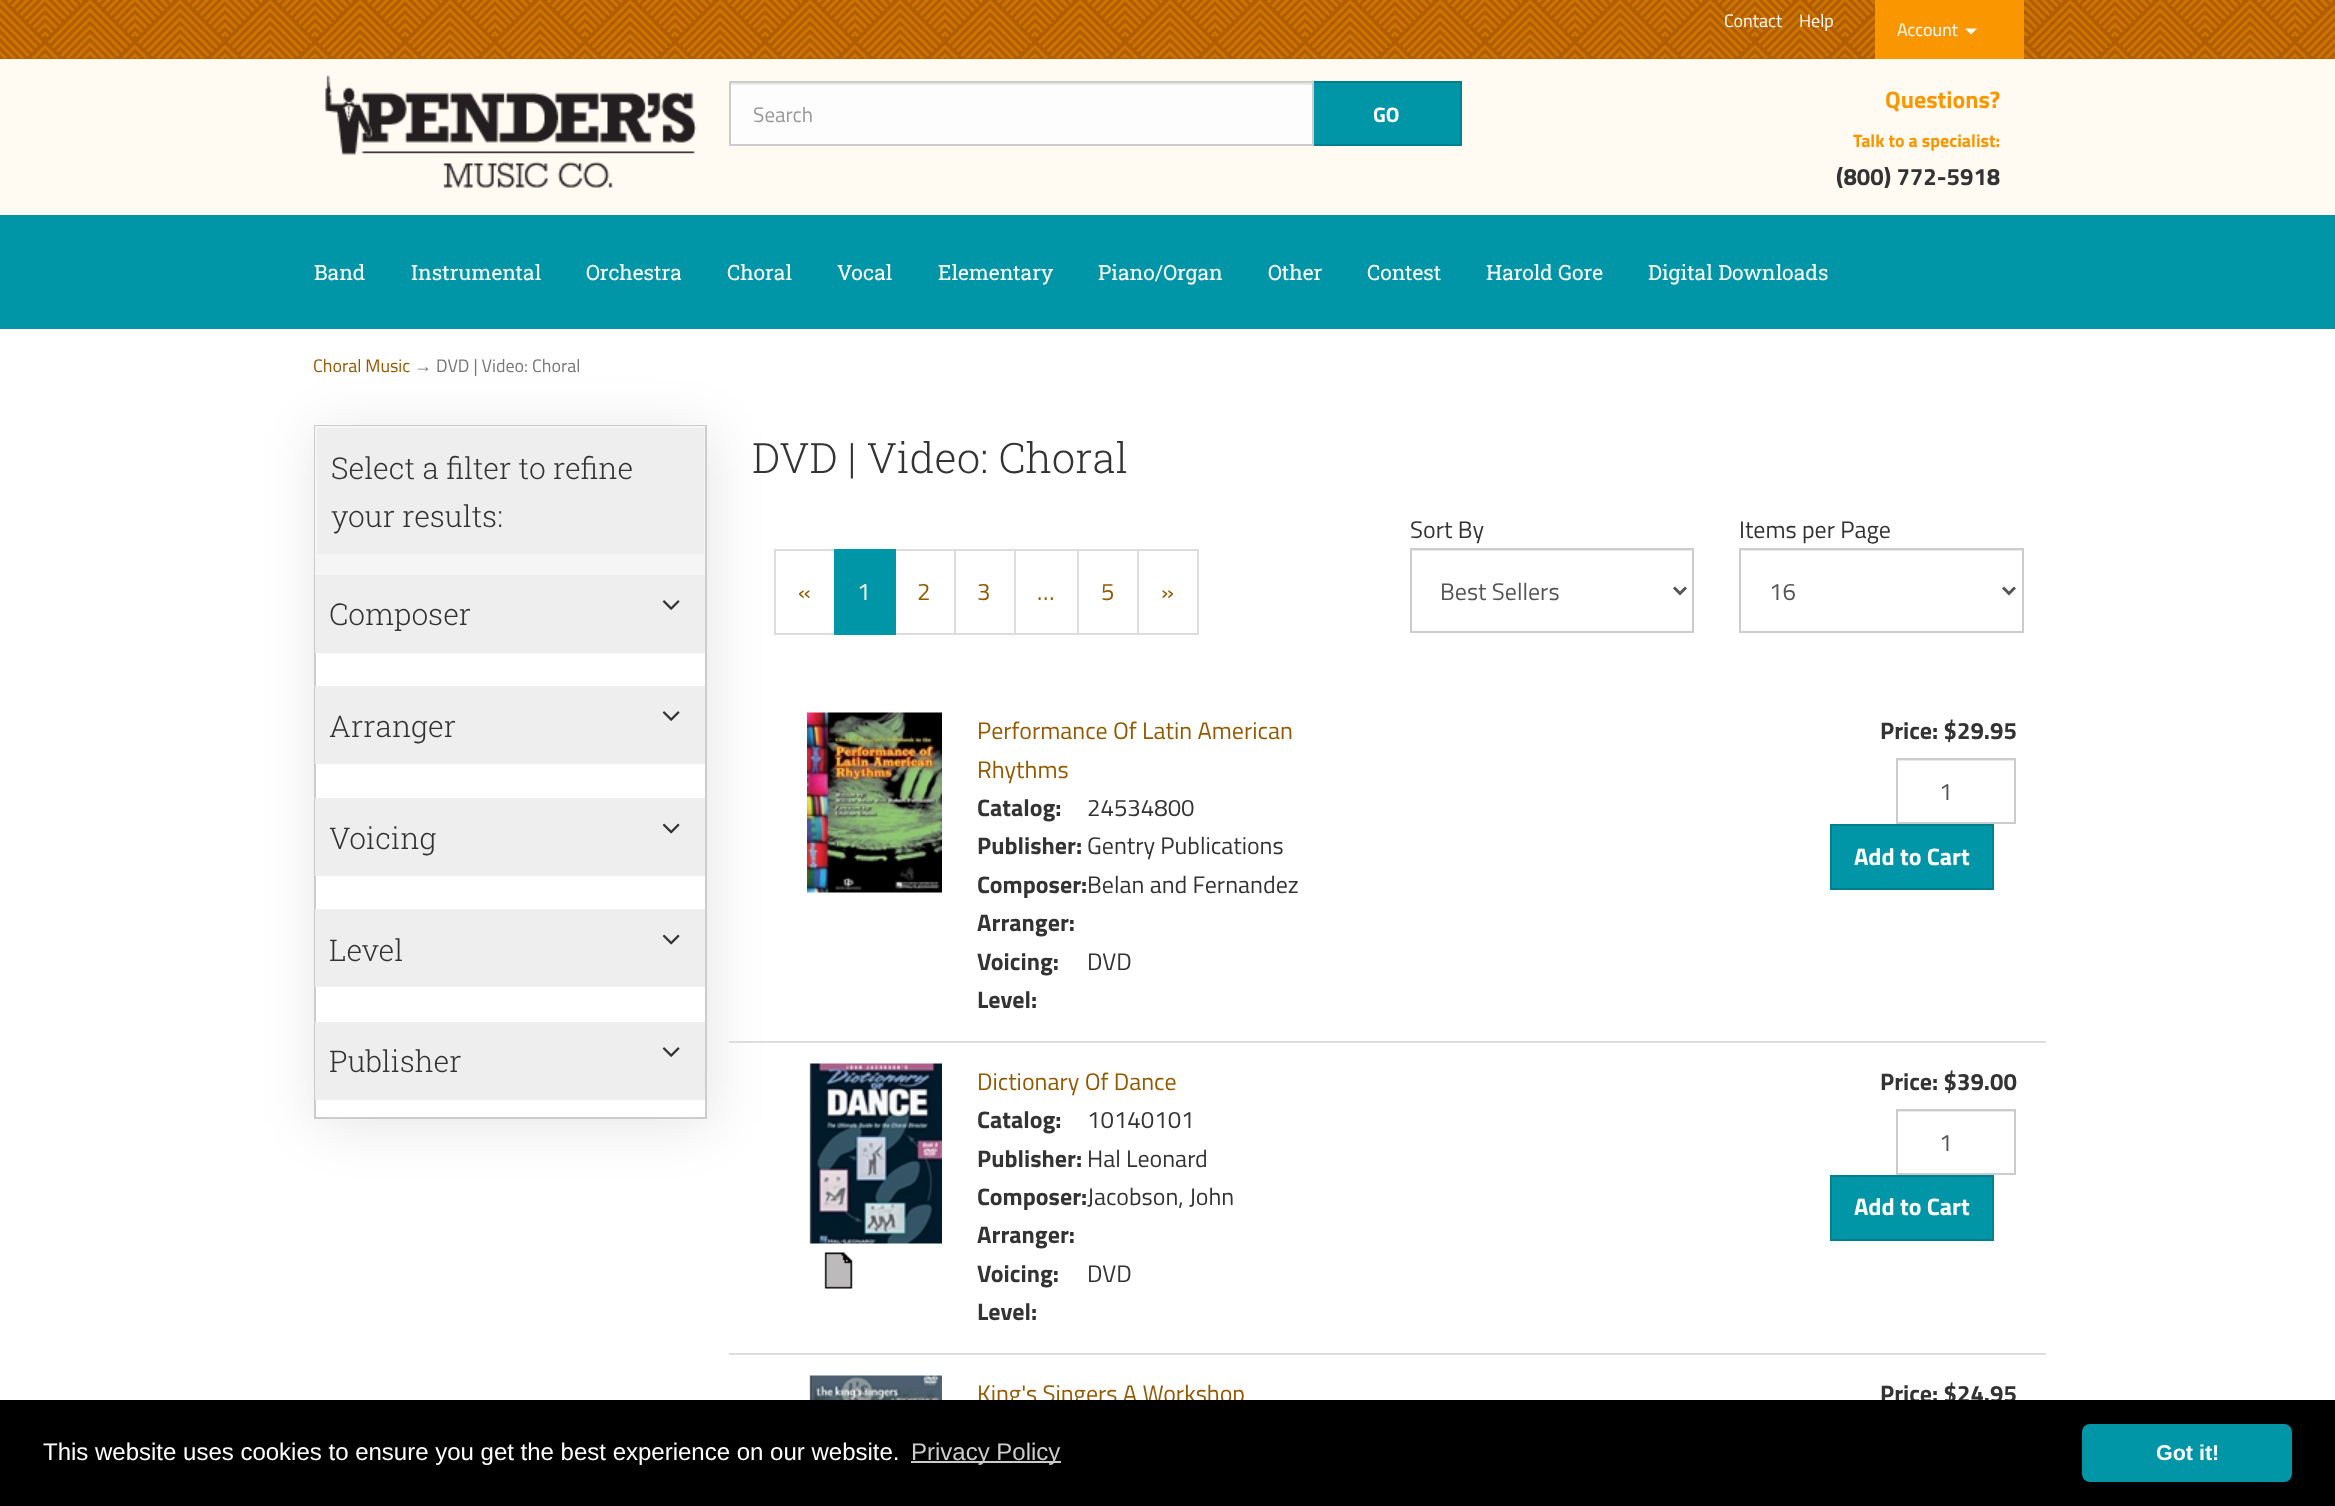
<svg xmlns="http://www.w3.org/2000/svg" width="2335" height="1506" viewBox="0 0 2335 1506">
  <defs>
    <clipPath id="clip1"><path d="M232 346H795V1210H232ZM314 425H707V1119H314Z" clip-rule="evenodd"/></clipPath>
  </defs>
  <rect width="100%" height="100%" fill="rgb(255,255,255)"/>
  <rect x="0" y="0" width="2335" height="59" fill="rgb(176,93,0)"/>
  <image x="0" y="0" width="2335" height="59" href="pic1.png"/>
  <g font-family="Titillium Web" font-size="18" fill="rgb(255,255,255)">
    <text x="1724" y="27">Contact</text>
    <text x="1799" y="27">Help</text>
  </g>
  <rect x="1875" y="0" width="149" height="59" fill="rgb(250,150,0)"/>
  <text x="1897" y="36" font-family="Titillium Web" font-size="18" fill="rgb(255,255,255)">Account</text>
  <path d="M1965 28.5H1977L1971 34.5Z" fill="rgb(255,255,255)"/>
  <rect x="0" y="59" width="2335" height="156" fill="rgb(255,251,243)"/>
  <image x="325" y="75" width="372" height="113" href="pic2.png"/>
  <rect x="731" y="85" width="581" height="59" fill="rgb(253,253,253)"/>
  <rect x="731" y="83" width="582" height="2" fill="rgb(234,234,234)"/>
  <rect x="730" y="82" width="583" height="63" fill="none" stroke="rgb(204,204,204)" stroke-width="2"/>
  <text x="753" y="122" font-family="Titillium Web" font-size="21" fill="rgb(153,153,153)">Search</text>
  <rect x="1314" y="83" width="146" height="61" fill="rgb(0,150,167)"/>
  <rect x="1314" y="81" width="147" height="2" fill="rgb(0,127,142)"/>
  <rect x="1460" y="81" width="2" height="65" fill="rgb(0,127,142)"/>
  <rect x="1314" y="144" width="147" height="2" fill="rgb(0,127,142)"/>
  <text x="1373" y="122" font-family="Titillium Web" font-size="21" font-weight="bold" fill="rgb(255,255,255)">GO</text>
  <text x="1885" y="108" font-family="Titillium Web" font-size="24" font-weight="bold" fill="rgb(250,150,0)">Questions?</text>
  <text x="1853" y="147" font-family="Titillium Web" font-size="18" font-weight="bold" fill="rgb(250,150,0)">Talk to a specialist:</text>
  <text x="1836" y="185" font-family="Titillium Web" font-size="24" font-weight="bold" fill="rgb(51,51,51)">(800) 772-5918</text>
  <rect x="0" y="215" width="2335" height="114" fill="rgb(0,150,167)"/>
  <g font-family="Roboto Slab" font-size="21" fill="rgb(255,255,255)">
    <text x="314" y="280">Band</text>
    <text x="411" y="280">Instrumental</text>
    <text x="586" y="280">Orchestra</text>
    <text x="727" y="280">Choral</text>
    <text x="837" y="280">Vocal</text>
    <text x="938" y="280">Elementary</text>
    <text x="1098" y="280">Piano/Organ</text>
    <text x="1268" y="280">Other</text>
    <text x="1367" y="280">Contest</text>
    <text x="1486" y="280">Harold Gore</text>
    <text x="1648" y="280">Digital Downloads</text>
  </g>
  <text x="313" y="372" font-family="Titillium Web" font-size="18" fill="rgb(148,89,0)">Choral Music</text>
  <text x="414" y="372" font-family="Liberation Sans" font-size="18" fill="rgb(119,119,119)">→</text>
  <text x="436" y="372" font-family="Titillium Web" font-size="18" fill="rgb(119,119,119)">DVD | Video: Choral</text>
  <g clip-path="url(#clip1)">
    <rect x="317" y="431" width="393" height="694" fill="rgba(0,0,0,0.1)" filter="blur(28px)"/>
  </g>
  <rect x="315" y="426" width="391" height="692" fill="none" stroke="rgb(204,204,204)" stroke-width="2"/>
  <rect x="315" y="426" width="390" height="149" fill="rgb(245,245,245)"/>
  <rect x="317" y="428" width="387" height="126" fill="rgb(238,238,238)"/>
  <g font-family="Roboto Slab" font-size="30" font-weight="300" fill="rgb(51,51,51)">
    <text>
      <tspan x="331" y="479">Select a filter to refine</tspan>
      <tspan x="331" y="527">your results:</tspan>
    </text>
  </g>
  <rect x="315" y="575" width="390" height="78" fill="rgb(238,238,238)"/>
  <text x="329" y="625" font-family="Roboto Slab" font-size="30" font-weight="300" fill="rgb(51,51,51)">Composer</text>
  <image x="662" y="600" width="18" height="10" href="pic3.png"/>
  <rect x="315" y="686" width="390" height="78" fill="rgb(238,238,238)"/>
  <text x="329" y="737" font-family="Roboto Slab" font-size="30" font-weight="300" fill="rgb(51,51,51)">Arranger</text>
  <image x="662" y="711" width="18" height="10" href="pic3.png"/>
  <rect x="315" y="798" width="390" height="78" fill="rgb(238,238,238)"/>
  <text x="329" y="849" font-family="Roboto Slab" font-size="30" font-weight="300" fill="rgb(51,51,51)">Voicing</text>
  <image x="662" y="823" width="18" height="11" href="pic4.png"/>
  <rect x="315" y="909" width="390" height="78" fill="rgb(238,238,238)"/>
  <text x="329" y="961" font-family="Roboto Slab" font-size="30" font-weight="300" fill="rgb(51,51,51)">Level</text>
  <image x="662" y="934" width="18" height="11" href="pic4.png"/>
  <rect x="315" y="1022" width="390" height="78" fill="rgb(238,238,238)"/>
  <text x="329" y="1072" font-family="Roboto Slab" font-size="30" font-weight="300" fill="rgb(51,51,51)">Publisher</text>
  <image x="662" y="1047" width="18" height="10" href="pic3.png"/>
  <text x="752" y="473" font-family="Roboto Slab" font-size="42" font-weight="300" fill="rgb(51,51,51)">DVD | Video: Choral</text>
  <rect x="775" y="550" width="60" height="84" fill="none" stroke="rgb(221,221,221)" stroke-width="2"/>
  <text x="798" y="600" font-family="Titillium Web" font-size="24" fill="rgb(148,89,0)">«</text>
  <rect x="895" y="550" width="60" height="84" fill="none" stroke="rgb(221,221,221)" stroke-width="2"/>
  <rect x="834" y="549" width="62" height="86" fill="rgb(0,150,167)"/>
  <text x="857" y="600" font-family="Titillium Web" font-size="24" fill="rgb(255,255,255)">1</text>
  <text x="917" y="600" font-family="Titillium Web" font-size="24" fill="rgb(148,89,0)">2</text>
  <rect x="955" y="550" width="60" height="84" fill="none" stroke="rgb(221,221,221)" stroke-width="2"/>
  <text x="977" y="600" font-family="Titillium Web" font-size="24" fill="rgb(148,89,0)">3</text>
  <rect x="1015" y="550" width="63" height="84" fill="none" stroke="rgb(221,221,221)" stroke-width="2"/>
  <text x="1037" y="600" font-family="Titillium Web" font-size="24" fill="rgb(148,89,0)">…</text>
  <rect x="1078" y="550" width="60" height="84" fill="none" stroke="rgb(221,221,221)" stroke-width="2"/>
  <text x="1101" y="600" font-family="Titillium Web" font-size="24" fill="rgb(148,89,0)">5</text>
  <rect x="1138" y="550" width="60" height="84" fill="none" stroke="rgb(221,221,221)" stroke-width="2"/>
  <text x="1161" y="600" font-family="Titillium Web" font-size="24" fill="rgb(148,89,0)">»</text>
  <text x="1410" y="538" font-family="Titillium Web" font-size="24" fill="rgb(51,51,51)">Sort By</text>
  <rect x="1412" y="550" width="280" height="1" fill="rgb(234,234,234)"/>
  <rect x="1411" y="549" width="282" height="83" fill="none" stroke="rgb(204,204,204)" stroke-width="2"/>
  <path d="M1674 587.5L1680 593.5L1686 587.5" fill="none" stroke="rgb(85,85,85)" stroke-width="3"/>
  <text x="1440" y="600" font-family="Titillium Web" font-size="24" fill="rgb(85,85,85)">Best Sellers</text>
  <text x="1739" y="538" font-family="Titillium Web" font-size="24" fill="rgb(51,51,51)">Items per Page</text>
  <rect x="1740" y="550" width="282" height="1" fill="rgb(234,234,234)"/>
  <rect x="1740" y="549" width="283" height="83" fill="none" stroke="rgb(204,204,204)" stroke-width="2"/>
  <path d="M2003 587.5L2009 593.5L2015 587.5" fill="none" stroke="rgb(85,85,85)" stroke-width="3"/>
  <text x="1769" y="600" font-family="Titillium Web" font-size="24" fill="rgb(85,85,85)">16</text>
  <rect x="729" y="1041" width="1317" height="2" fill="rgb(221,221,221)"/>
  <image x="807" y="712" width="135" height="181" href="pic5.png"/>
  <g font-family="Titillium Web" font-size="24" fill="rgb(148,89,0)">
    <text>
      <tspan x="977" y="739">Performance Of Latin American</tspan>
      <tspan x="977" y="778">Rhythms</tspan>
    </text>
  </g>
  <text x="977" y="816" font-family="Titillium Web" font-size="24" font-weight="bold" fill="rgb(51,51,51)">Catalog:</text>
  <text x="1087" y="816" font-family="Titillium Web" font-size="24" fill="rgb(51,51,51)">24534800</text>
  <text x="977" y="854" font-family="Titillium Web" font-size="24" font-weight="bold" fill="rgb(51,51,51)">Publisher:</text>
  <text x="1087" y="854" font-family="Titillium Web" font-size="24" fill="rgb(51,51,51)">Gentry Publications</text>
  <text x="977" y="893" font-family="Titillium Web" font-size="24" font-weight="bold" fill="rgb(51,51,51)">Composer:</text>
  <text x="1087" y="893" font-family="Titillium Web" font-size="24" fill="rgb(51,51,51)">Belan and Fernandez</text>
  <g font-family="Titillium Web" font-size="24" font-weight="bold" fill="rgb(51,51,51)">
    <text>
      <tspan x="977" y="931">Arranger:</tspan>
      <tspan x="977" y="970">Voicing:</tspan>
    </text>
  </g>
  <text x="1087" y="970" font-family="Titillium Web" font-size="24" fill="rgb(51,51,51)">DVD</text>
  <g font-family="Titillium Web" font-size="24" font-weight="bold" fill="rgb(51,51,51)">
    <text x="977" y="1008">Level:</text>
    <text x="1880" y="739">Price: $29.95</text>
  </g>
  <rect x="1898" y="760" width="117" height="1" fill="rgb(234,234,234)"/>
  <rect x="1897" y="759" width="118" height="64" fill="none" stroke="rgb(204,204,204)" stroke-width="2"/>
  <text x="1939" y="800" font-family="Titillium Web" font-size="24" fill="rgb(85,85,85)">1</text>
  <rect x="1831" y="825" width="162" height="64" fill="rgb(0,150,167)" stroke="rgb(0,127,142)" stroke-width="2"/>
  <text x="1854" y="865" font-family="Titillium Web" font-size="24" font-weight="bold" fill="rgb(255,255,255)">Add to Cart</text>
  <rect x="729" y="1353" width="1317" height="2" fill="rgb(221,221,221)"/>
  <image x="809" y="1063" width="133" height="181" href="pic6.png"/>
  <image x="824" y="1252" width="29" height="37" href="pic7.png"/>
  <text x="977" y="1090" font-family="Titillium Web" font-size="24" fill="rgb(148,89,0)">Dictionary Of Dance</text>
  <text x="977" y="1128" font-family="Titillium Web" font-size="24" font-weight="bold" fill="rgb(51,51,51)">Catalog:</text>
  <text x="1087" y="1128" font-family="Titillium Web" font-size="24" fill="rgb(51,51,51)">10140101</text>
  <text x="977" y="1167" font-family="Titillium Web" font-size="24" font-weight="bold" fill="rgb(51,51,51)">Publisher:</text>
  <text x="1087" y="1167" font-family="Titillium Web" font-size="24" fill="rgb(51,51,51)">Hal Leonard</text>
  <text x="977" y="1205" font-family="Titillium Web" font-size="24" font-weight="bold" fill="rgb(51,51,51)">Composer:</text>
  <text x="1087" y="1205" font-family="Titillium Web" font-size="24" fill="rgb(51,51,51)">Jacobson, John</text>
  <g font-family="Titillium Web" font-size="24" font-weight="bold" fill="rgb(51,51,51)">
    <text>
      <tspan x="977" y="1243">Arranger:</tspan>
      <tspan x="977" y="1282">Voicing:</tspan>
    </text>
  </g>
  <text x="1087" y="1282" font-family="Titillium Web" font-size="24" fill="rgb(51,51,51)">DVD</text>
  <g font-family="Titillium Web" font-size="24" font-weight="bold" fill="rgb(51,51,51)">
    <text x="977" y="1320">Level:</text>
    <text x="1880" y="1090">Price: $39.00</text>
  </g>
  <rect x="1898" y="1111" width="117" height="1" fill="rgb(234,234,234)"/>
  <rect x="1897" y="1110" width="118" height="64" fill="none" stroke="rgb(204,204,204)" stroke-width="2"/>
  <text x="1939" y="1151" font-family="Titillium Web" font-size="24" fill="rgb(85,85,85)">1</text>
  <rect x="1831" y="1176" width="162" height="64" fill="rgb(0,150,167)" stroke="rgb(0,127,142)" stroke-width="2"/>
  <text x="1854" y="1215" font-family="Titillium Web" font-size="24" font-weight="bold" fill="rgb(255,255,255)">Add to Cart</text>
  <image x="808" y="1375" width="134" height="25" href="pic8.png"/>
  <text x="977" y="1402" font-family="Titillium Web" font-size="24" fill="rgb(148,89,0)">King's Singers A Workshop</text>
  <text x="1880" y="1402" font-family="Titillium Web" font-size="24" font-weight="bold" fill="rgb(51,51,51)">Price: $24.95</text>
  <rect x="0" y="1400" width="2335" height="106" fill="rgb(0,0,0)"/>
  <text x="43" y="1460" font-family="Liberation Sans" font-size="24" fill="rgb(255,255,255)">This website uses cookies to ensure you get the best experience on our website.</text>
  <rect x="911" y="1461" width="150" height="2" fill="rgb(204,204,204)"/>
  <text x="911" y="1460" font-family="Liberation Sans" font-size="24" fill="rgb(204,204,204)">Privacy Policy</text>
  <rect x="2082" y="1424" width="210" height="58" rx="8" fill="rgb(0,150,167)"/>
  <text x="2156" y="1460" font-family="Liberation Sans" font-size="21.5" font-weight="bold" fill="rgb(255,255,255)">Got it!</text>
</svg>
